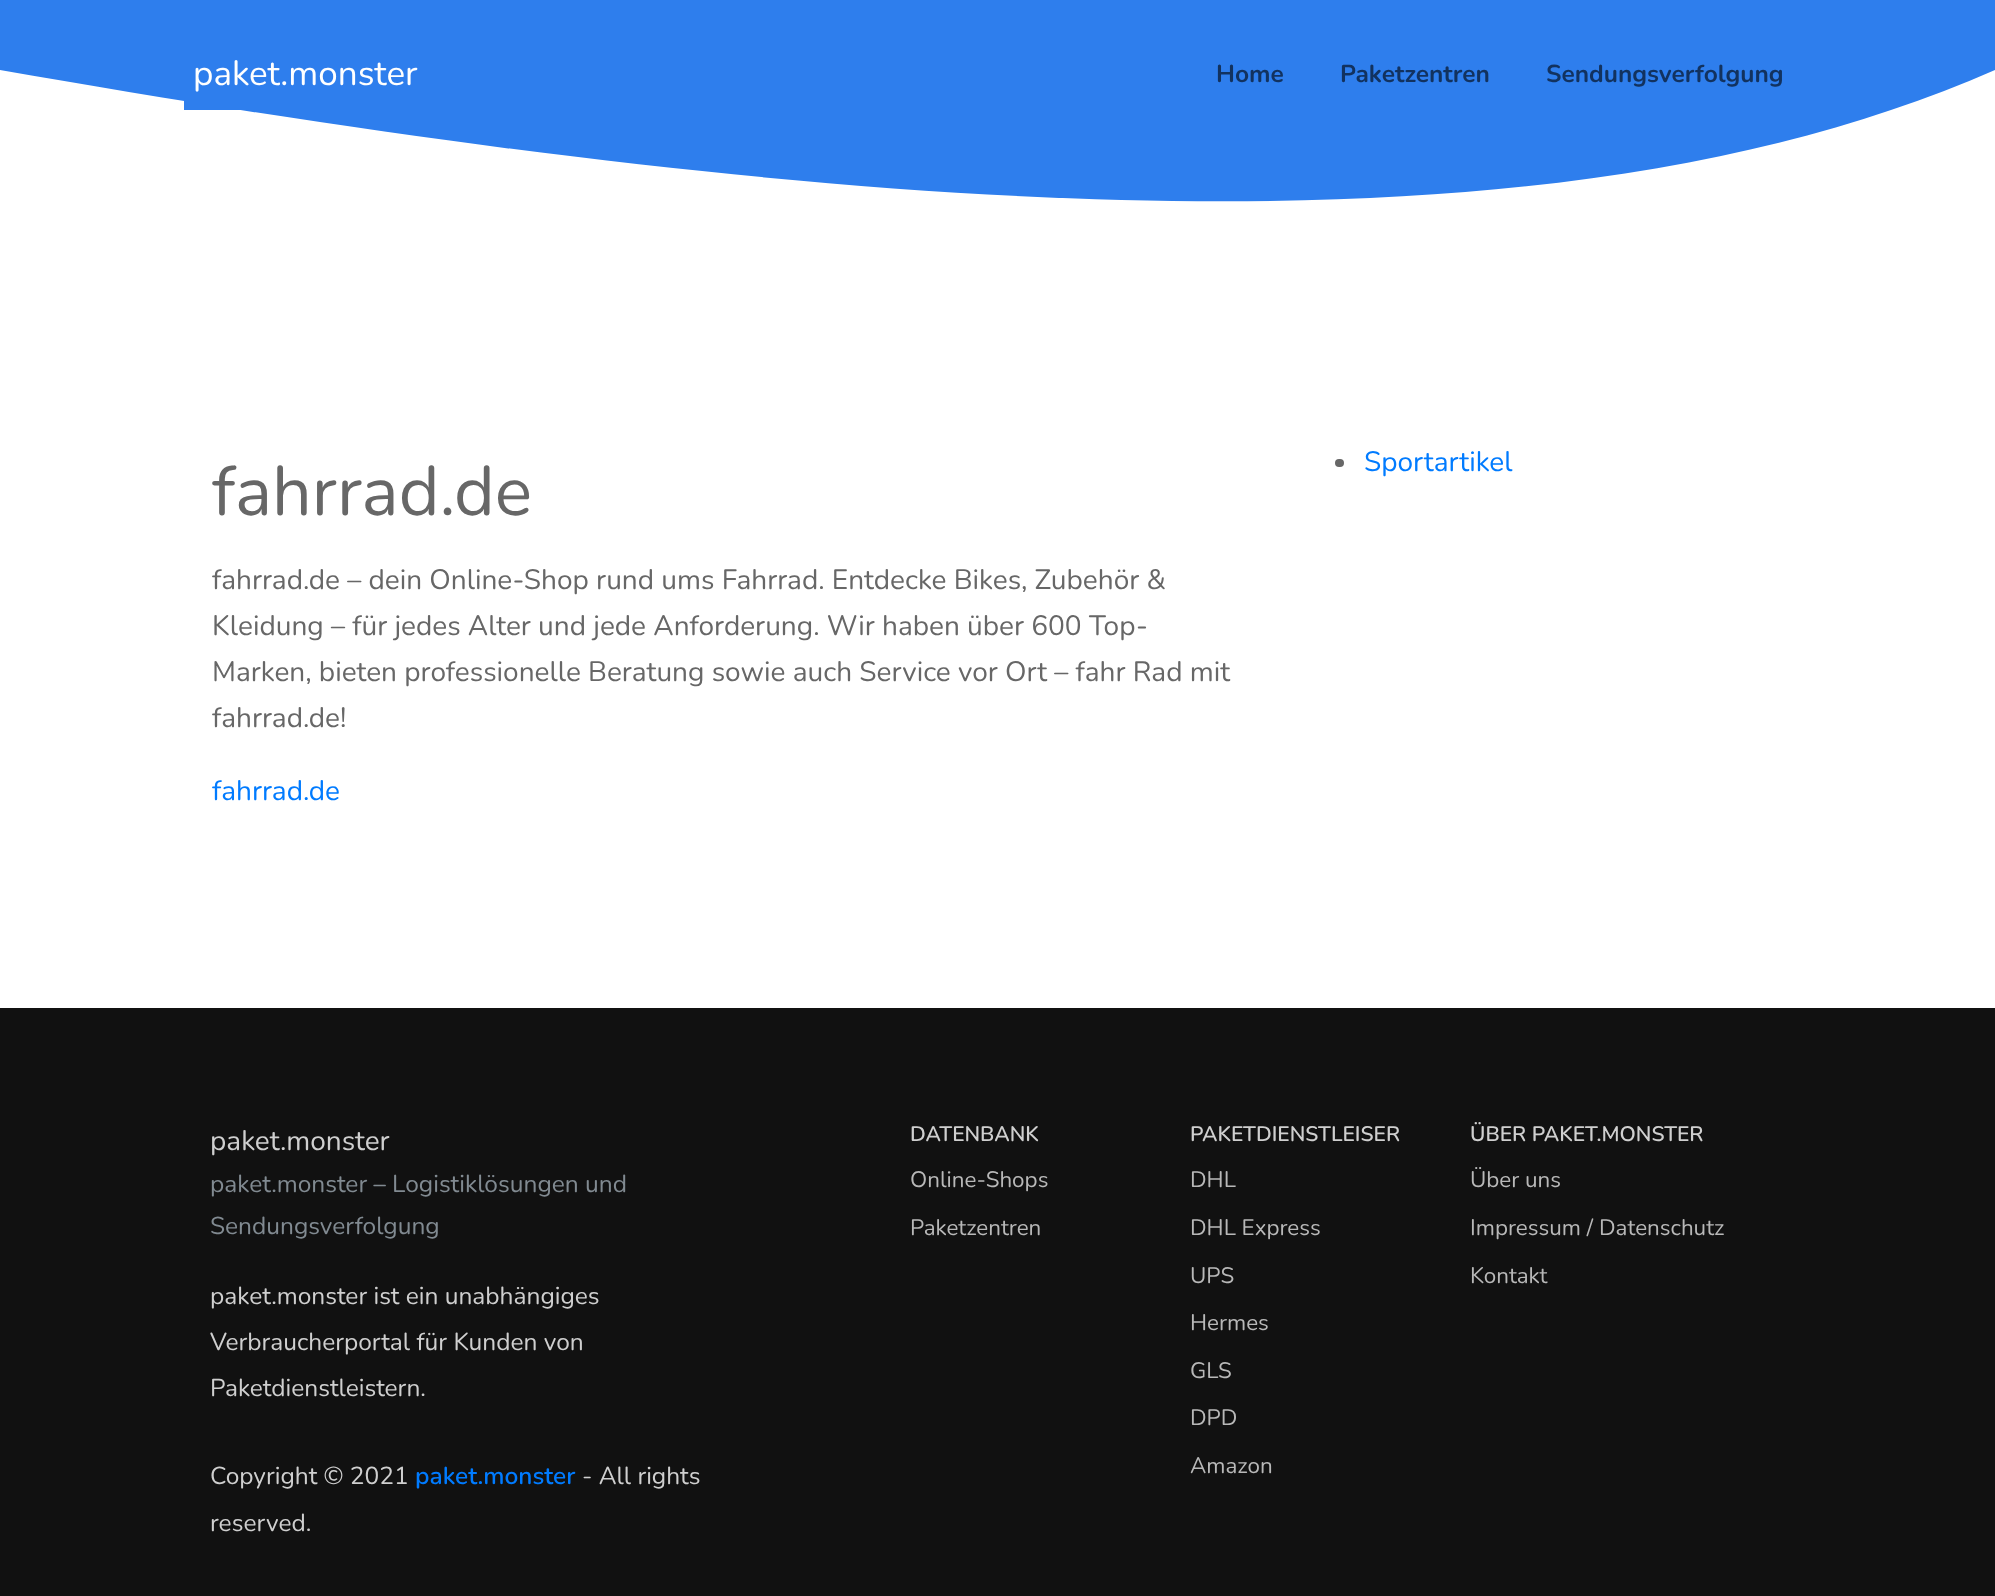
<svg xmlns="http://www.w3.org/2000/svg" width="1995" height="1596" viewBox="0 0 1995 1596">
  <rect width="100%" height="100%" fill="rgb(255,255,255)"/>
  <rect x="0" y="0" width="1995" height="70" fill="rgb(46,126,237)"/>
  <path d="M0 70C998 245 1596 245 1995 70Z" fill="rgb(46,126,237)"/>
  <rect x="184" y="101" width="57" height="9" fill="rgb(46,126,237)"/>
  <text x="193" y="85" font-family="Nunito" font-size="35" font-weight="200" fill="rgb(255,255,255)">paket.monster</text>
  <g font-family="Nunito" font-size="24.5" font-weight="bold" fill="rgb(18,50,95)">
    <text x="1216" y="82">Home</text>
    <text x="1340" y="82">Paketzentren</text>
    <text x="1546" y="82">Sendungsverfolgung</text>
  </g>
  <text x="212" y="515" font-family="Nunito" font-size="70" font-weight="200" fill="rgb(103,103,103)">fahrrad.de</text>
  <g font-family="Nunito" font-size="28" font-weight="200" fill="rgb(103,103,103)">
    <text>
      <tspan x="212" y="589">fahrrad.de – dein Online-Shop rund ums Fahrrad. Entdecke Bikes, Zubehör &amp;</tspan>
      <tspan x="212" y="635">Kleidung – für jedes Alter und jede Anforderung. Wir haben über 600 Top-</tspan>
      <tspan x="212" y="681">Marken, bieten professionelle Beratung sowie auch Service vor Ort – fahr Rad mit</tspan>
      <tspan x="212" y="727">fahrrad.de!</tspan>
    </text>
  </g>
  <text x="212" y="800" font-family="Nunito" font-size="28" font-weight="200" fill="rgb(0,123,255)">fahrrad.de</text>
  <rect x="1335" y="459" width="9" height="8" rx="4" fill="rgb(103,103,103)"/>
  <text x="1364" y="471" font-family="Nunito" font-size="28" font-weight="200" fill="rgb(0,123,255)">Sportartikel</text>
  <rect x="0" y="1008" width="1995" height="588" fill="rgb(17,17,17)"/>
  <text x="210" y="1150" font-family="Nunito" font-size="28" font-weight="200" fill="rgb(207,207,207)">paket.monster</text>
  <g font-family="Nunito" font-size="24.5" font-weight="200" fill="rgb(129,138,145)">
    <text>
      <tspan x="210" y="1192">paket.monster – Logistiklösungen und</tspan>
      <tspan x="210" y="1234">Sendungsverfolgung</tspan>
    </text>
  </g>
  <g font-family="Nunito" font-size="24.5" font-weight="200" fill="rgb(207,207,207)">
    <text>
      <tspan x="210" y="1304">paket.monster ist ein unabhängiges</tspan>
      <tspan x="210" y="1350">Verbraucherportal für Kunden von</tspan>
      <tspan x="210" y="1396">Paketdienstleistern.</tspan>
    </text>
    <text x="210" y="1484">Copyright © 2021</text>
  </g>
  <text x="415" y="1484" font-family="Nunito" font-size="24.5" font-weight="600" fill="rgb(0,123,255)">paket.monster</text>
  <g font-family="Nunito" font-size="24.5" font-weight="200" fill="rgb(207,207,207)">
    <text x="582" y="1484">- All rights</text>
    <text x="210" y="1531">reserved.</text>
  </g>
  <text x="910" y="1141" font-family="Nunito" font-size="21" font-weight="600" fill="rgb(207,207,207)">DATENBANK</text>
  <g font-family="Nunito" font-size="22.4" font-weight="200" fill="rgb(184,184,184)">
    <text x="910" y="1187">Online-Shops</text>
    <text x="910" y="1235">Paketzentren</text>
  </g>
  <text x="1190" y="1141" font-family="Nunito" font-size="21" font-weight="600" fill="rgb(207,207,207)">PAKETDIENSTLEISER</text>
  <g font-family="Nunito" font-size="22.4" font-weight="200" fill="rgb(184,184,184)">
    <text x="1190" y="1187">DHL</text>
    <text x="1190" y="1235">DHL Express</text>
    <text x="1190" y="1283">UPS</text>
    <text x="1190" y="1330">Hermes</text>
    <text x="1190" y="1378">GLS</text>
    <text x="1190" y="1425">DPD</text>
    <text x="1190" y="1473">Amazon</text>
  </g>
  <text x="1470" y="1141" font-family="Nunito" font-size="21" font-weight="600" fill="rgb(207,207,207)">ÜBER PAKET.MONSTER</text>
  <g font-family="Nunito" font-size="22.4" font-weight="200" fill="rgb(184,184,184)">
    <text x="1470" y="1187">Über uns</text>
    <text x="1470" y="1235">Impressum / Datenschutz</text>
    <text x="1470" y="1283">Kontakt</text>
  </g>
</svg>
